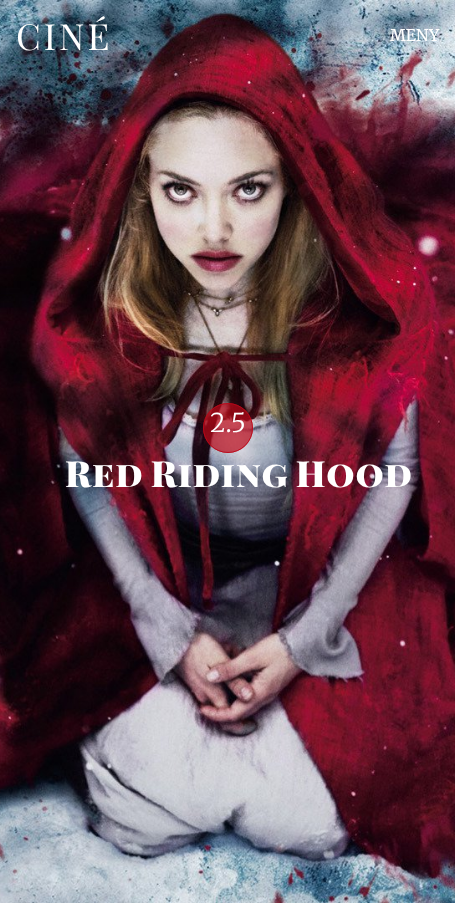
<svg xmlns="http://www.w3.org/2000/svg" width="455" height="903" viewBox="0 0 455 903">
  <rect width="100%" height="100%" fill="rgb(255,255,255)"/>
  <image x="0" y="0" width="455" height="903" href="pic1.png"/>
  <text x="16" y="50" font-family="Playfair Display" font-size="36" letter-spacing="3" fill="rgb(255,255,255)">CINÉ</text>
  <text x="390" y="41" font-family="Merriweather" font-size="16" fill="rgb(255,255,255)">MENY</text>
  <circle cx="228" cy="428" r="25" fill="rgba(186,8,24,0.7)"/>
  <circle cx="228" cy="428" r="24.5" fill="none" stroke="rgba(186,8,24,0.9)"/>
  <text x="210" y="432" font-family="Merriweather" font-size="26" font-weight="300" fill="rgb(255,255,255)">2.5</text>
  <text x="65" y="487" word-spacing="-2" font-family="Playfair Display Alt" font-size="36" font-weight="900" letter-spacing="1" fill="rgb(255,255,255)">Red Riding Hood</text>
</svg>
